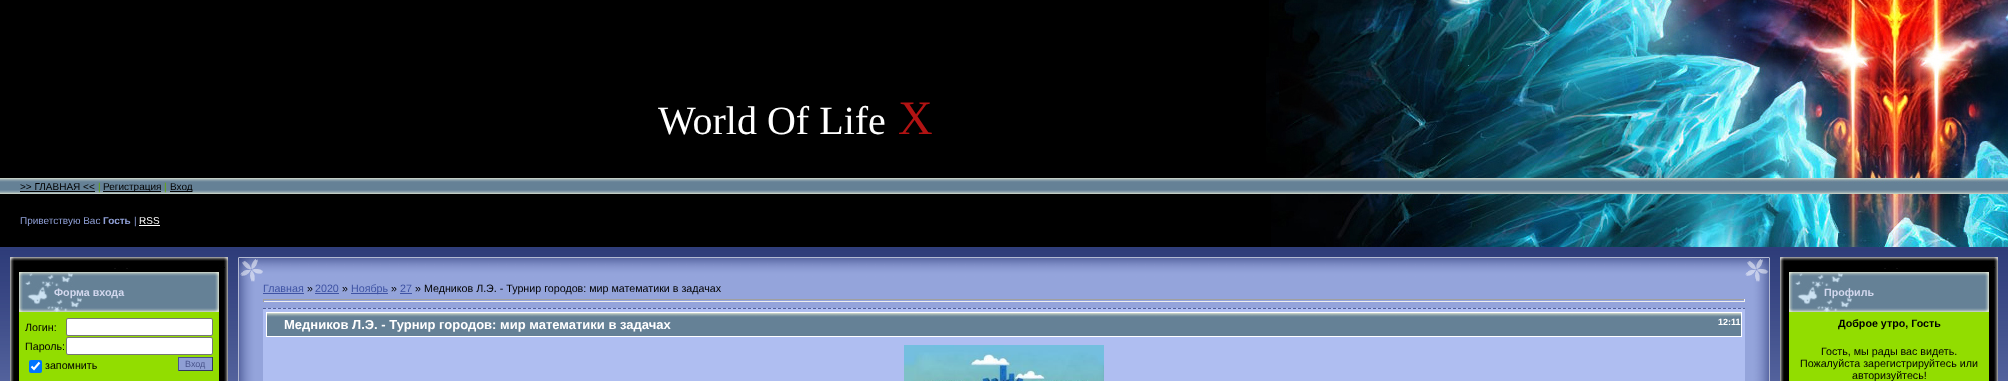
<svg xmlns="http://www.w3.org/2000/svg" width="2008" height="381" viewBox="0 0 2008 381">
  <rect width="100%" height="100%" fill="rgb(255,255,255)"/>
  <image x="0" y="0" width="2008" height="381" href="pic1.png"/>
  <image x="1266" y="57" width="324" height="121" href="pic2.png"/>
  <text x="658" y="134" font-family="Liberation Serif" font-size="40" fill="rgb(255,255,255)">World Of Life</text>
  <text x="898" y="134" font-family="Liberation Serif" font-size="48" fill="rgb(177,19,19)">Х</text>
  <image x="1269" y="0" width="321" height="57" href="pic3.png"/>
  <image x="1590" y="0" width="418" height="247" href="pic4.png"/>
  <text x="20" y="190" font-family="Liberation Sans" font-size="10" fill="rgb(0,0,0)">&gt;&gt; ГЛАВНАЯ &lt;&lt;</text>
  <rect x="20" y="191" width="75" height="1" fill="rgb(0,0,0)"/>
  <text x="98" y="190" font-family="Liberation Sans" font-size="10" fill="rgb(97,168,0)">|</text>
  <rect x="103" y="191" width="58" height="1" fill="rgb(0,0,0)"/>
  <text x="103" y="190" font-family="Liberation Sans" font-size="10" fill="rgb(0,0,0)">Регистрация</text>
  <text x="164" y="190" font-family="Liberation Sans" font-size="10" fill="rgb(97,168,0)">|</text>
  <rect x="170" y="191" width="22" height="1" fill="rgb(0,0,0)"/>
  <text x="170" y="190" font-family="Liberation Sans" font-size="10" fill="rgb(0,0,0)">Вход</text>
  <image x="1271" y="194" width="319" height="53" href="pic5.png"/>
  <text x="20" y="224" font-family="Liberation Sans" font-size="10" fill="rgb(144,160,215)">Приветствую Вас</text>
  <text x="103" y="224" font-family="Liberation Sans" font-size="10" font-weight="bold" fill="rgb(144,160,215)">Гость</text>
  <text x="134" y="224" font-family="Liberation Sans" font-size="10" fill="rgb(144,160,215)">|</text>
  <text x="139" y="224" font-family="Liberation Sans" font-size="10" fill="rgb(255,255,255)">RSS</text>
  <rect x="139" y="225" width="21" height="1" fill="rgb(255,255,255)"/>
  <image x="10" y="270" width="218" height="111" href="pic6.png"/>
  <image x="10" y="257" width="218" height="13" href="pic7.png"/>
  <rect x="19" y="312" width="200" height="69" fill="rgb(146,221,0)"/>
  <image x="19" y="272" width="200" height="40" href="pic8.png"/>
  <text x="54" y="296" font-family="Liberation Sans" font-size="10.7" font-weight="bold" fill="rgb(211,216,238)">Форма входа</text>
  <text x="25" y="331" font-family="Liberation Sans" font-size="10.7" fill="rgb(0,0,0)">Логин:</text>
  <rect x="66.5" y="318.5" width="146" height="17" rx="1.5" fill="rgb(255,255,255)" stroke="rgb(118,118,118)"/>
  <text x="25" y="350" font-family="Liberation Sans" font-size="10.7" fill="rgb(0,0,0)">Пароль:</text>
  <rect x="66.5" y="337.5" width="146" height="17" rx="1.5" fill="rgb(255,255,255)" stroke="rgb(118,118,118)"/>
  <rect x="29" y="360" width="13" height="13" rx="2" fill="rgb(0,117,255)"/>
  <path d="M31.5 366.5L34 369L39.5 362.5" fill="none" stroke="rgb(255,255,255)" stroke-width="2.1"/>
  <text x="45" y="369" font-family="Liberation Sans" font-size="10.7" fill="rgb(0,0,0)">запомнить</text>
  <rect x="179" y="358" width="33" height="12" fill="rgb(143,159,212)"/>
  <rect x="178" y="357" width="35" height="1" fill="rgb(73,84,139)"/>
  <rect x="212" y="357" width="1" height="14" fill="rgb(49,56,93)"/>
  <rect x="178" y="370" width="35" height="1" fill="rgb(49,56,93)"/>
  <rect x="178" y="357" width="1" height="14" fill="rgb(73,84,139)"/>
  <text x="185" y="367" font-family="Liberation Sans" font-size="9" fill="rgb(73,84,139)">Вход</text>
  <image x="238" y="257" width="25" height="25" href="pic9.png"/>
  <image x="263" y="257" width="1482" height="25" href="pic10.png"/>
  <image x="1745" y="257" width="25" height="25" href="pic11.png"/>
  <image x="238" y="282" width="25" height="99" href="pic12.png"/>
  <rect x="263" y="282" width="1482" height="26" fill="rgb(148,164,219)"/>
  <text x="263" y="292" font-family="Liberation Sans" font-size="10.7" fill="rgb(63,83,164)">Главная</text>
  <rect x="263" y="293" width="41" height="1" fill="rgb(63,83,164)"/>
  <text x="307" y="292" font-family="Liberation Sans" font-size="10.7" fill="rgb(0,0,0)">»</text>
  <text x="315" y="292" font-family="Liberation Sans" font-size="10.7" fill="rgb(63,83,164)">2020</text>
  <rect x="315" y="293" width="24" height="1" fill="rgb(63,83,164)"/>
  <text x="342" y="292" font-family="Liberation Sans" font-size="10.7" fill="rgb(0,0,0)">»</text>
  <rect x="351" y="293" width="37" height="1" fill="rgb(63,83,164)"/>
  <text x="351" y="292" font-family="Liberation Sans" font-size="10.7" fill="rgb(63,83,164)">Ноябрь</text>
  <text x="391" y="292" font-family="Liberation Sans" font-size="10.7" fill="rgb(0,0,0)">»</text>
  <text x="400" y="292" font-family="Liberation Sans" font-size="10.7" fill="rgb(63,83,164)">27</text>
  <rect x="400" y="293" width="12" height="1" fill="rgb(63,83,164)"/>
  <text x="415" y="292" font-family="Liberation Sans" font-size="10.7" fill="rgb(0,0,0)">» Медников Л.Э. - Турнир городов: мир математики в задачах</text>
  <rect x="263" y="299" width="1482" height="1" fill="rgb(159,159,159)"/>
  <rect x="1744" y="299" width="1" height="3" fill="rgb(238,238,238)"/>
  <rect x="263" y="301" width="1482" height="1" fill="rgb(238,238,238)"/>
  <rect x="263" y="299" width="1" height="3" fill="rgb(159,159,159)"/>
  <rect x="263" y="308" width="1482" height="73" fill="rgb(175,190,241)"/>
  <path d="M263 308.5H1745" fill="none" stroke="rgb(85,100,158)" stroke-dasharray="3 2"/>
  <image x="267" y="313" width="1474" height="23" href="pic13.png"/>
  <rect x="266.5" y="312.5" width="1475" height="24" fill="none" stroke="rgb(255,255,255)"/>
  <text x="284" y="329" font-family="Liberation Sans" font-size="13" font-weight="bold" fill="rgb(255,255,255)">Медников Л.Э. - Турнир городов: мир математики в задачах</text>
  <text x="1718" y="325" font-family="Liberation Sans" font-size="9" font-weight="bold" fill="rgb(255,255,255)">12:11</text>
  <image x="904" y="345" width="200" height="36" href="pic14.png"/>
  <image x="1745" y="282" width="25" height="99" href="pic15.png"/>
  <image x="1780" y="270" width="218" height="111" href="pic6.png"/>
  <image x="1780" y="257" width="218" height="13" href="pic7.png"/>
  <rect x="1789" y="312" width="200" height="69" fill="rgb(146,221,0)"/>
  <image x="1789" y="272" width="200" height="40" href="pic8.png"/>
  <text x="1824" y="296" font-family="Liberation Sans" font-size="10.7" font-weight="bold" fill="rgb(211,216,238)">Профиль</text>
  <text x="1838" y="327" font-family="Liberation Sans" font-size="10.7" font-weight="bold" fill="rgb(0,0,0)">Доброе утро, Гость</text>
  <g font-family="Liberation Sans" font-size="10.7" fill="rgb(0,0,0)">
    <text x="1821" y="355">Гость, мы рады вас видеть.</text>
    <text x="1800" y="367">Пожалуйста зарегистрируйтесь или</text>
    <text x="1852" y="379">авторизуйтесь!</text>
  </g>
</svg>
